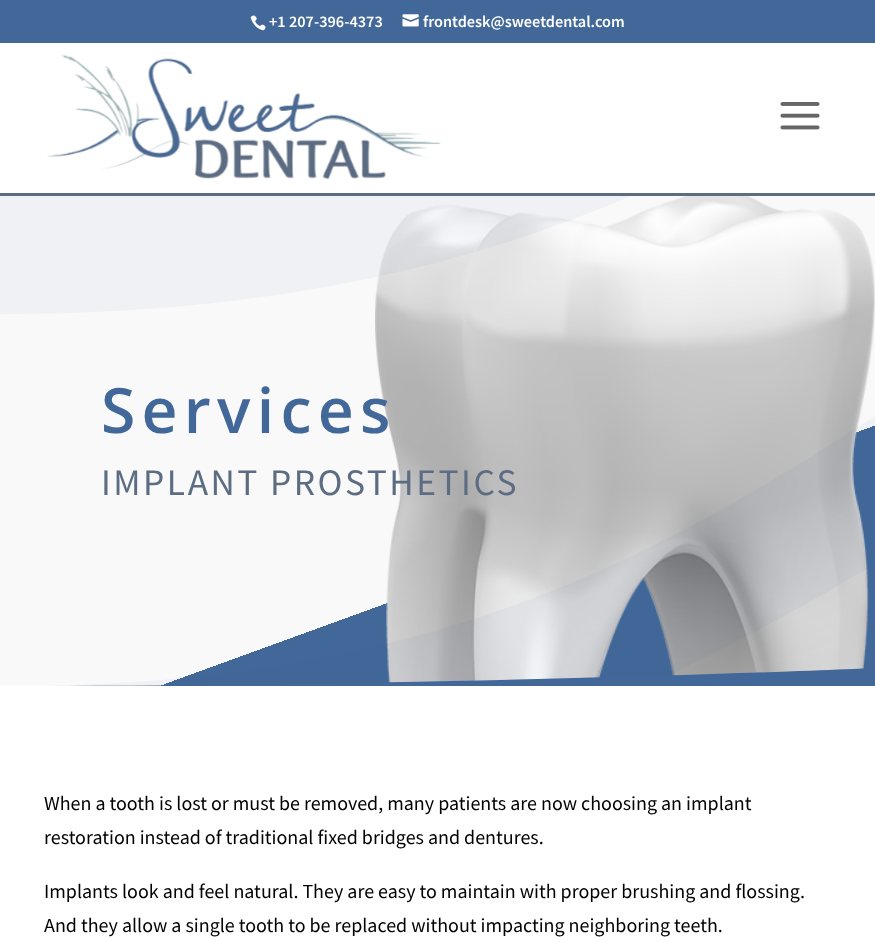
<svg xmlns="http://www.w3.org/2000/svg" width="875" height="942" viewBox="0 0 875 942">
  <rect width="100%" height="100%" fill="rgb(255,255,255)"/>
  <rect x="0" y="0" width="875" height="43" fill="rgb(66,104,153)"/>
  <image x="250" y="15" width="16" height="16" href="pic1.png"/>
  <text x="269" y="27" font-family="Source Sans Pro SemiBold" font-size="16.25" font-weight="600" fill="rgb(255,255,255)">+1 207-396-4373</text>
  <image x="402" y="14" width="17" height="13" href="pic2.png"/>
  <text x="423" y="27" font-family="Source Sans Pro SemiBold" font-size="16.25" font-weight="600" fill="rgb(255,255,255)">frontdesk@sweetdental.com</text>
  <rect x="0" y="193" width="875" height="3" fill="rgb(92,108,131)"/>
  <image x="47" y="54" width="394" height="125" href="pic3.png"/>
  <image x="780" y="102" width="40" height="28" href="pic4.png"/>
  <image x="0" y="196" width="875" height="490" href="pic5.png"/>
  <image x="0" y="196" width="875" height="490" href="pic6.png"/>
  <text x="101" y="433" font-family="Open Sans" font-size="62.5" font-weight="600" letter-spacing="6.25" fill="rgb(66,104,153)">Services</text>
  <text x="101" y="495" font-family="Source Sans Pro" font-size="37.5" letter-spacing="2.5" fill="rgb(92,108,131)">IMPLANT PROSTHETICS</text>
  <path d="M875 686H0C483 686 875 668 875 668Z" fill="rgb(66,104,153)"/>
  <g font-family="Source Sans Pro" font-size="20" fill="rgb(0,0,0)">
    <text>
      <tspan x="44" y="810">When a tooth is lost or must be removed, many patients are now choosing an implant</tspan>
      <tspan x="44" y="844">restoration instead of traditional fixed bridges and dentures.</tspan>
    </text>
    <text>
      <tspan x="44" y="898">Implants look and feel natural. They are easy to maintain with proper brushing and flossing.</tspan>
      <tspan x="44" y="932">And they allow a single tooth to be replaced without impacting neighboring teeth.</tspan>
    </text>
  </g>
</svg>
